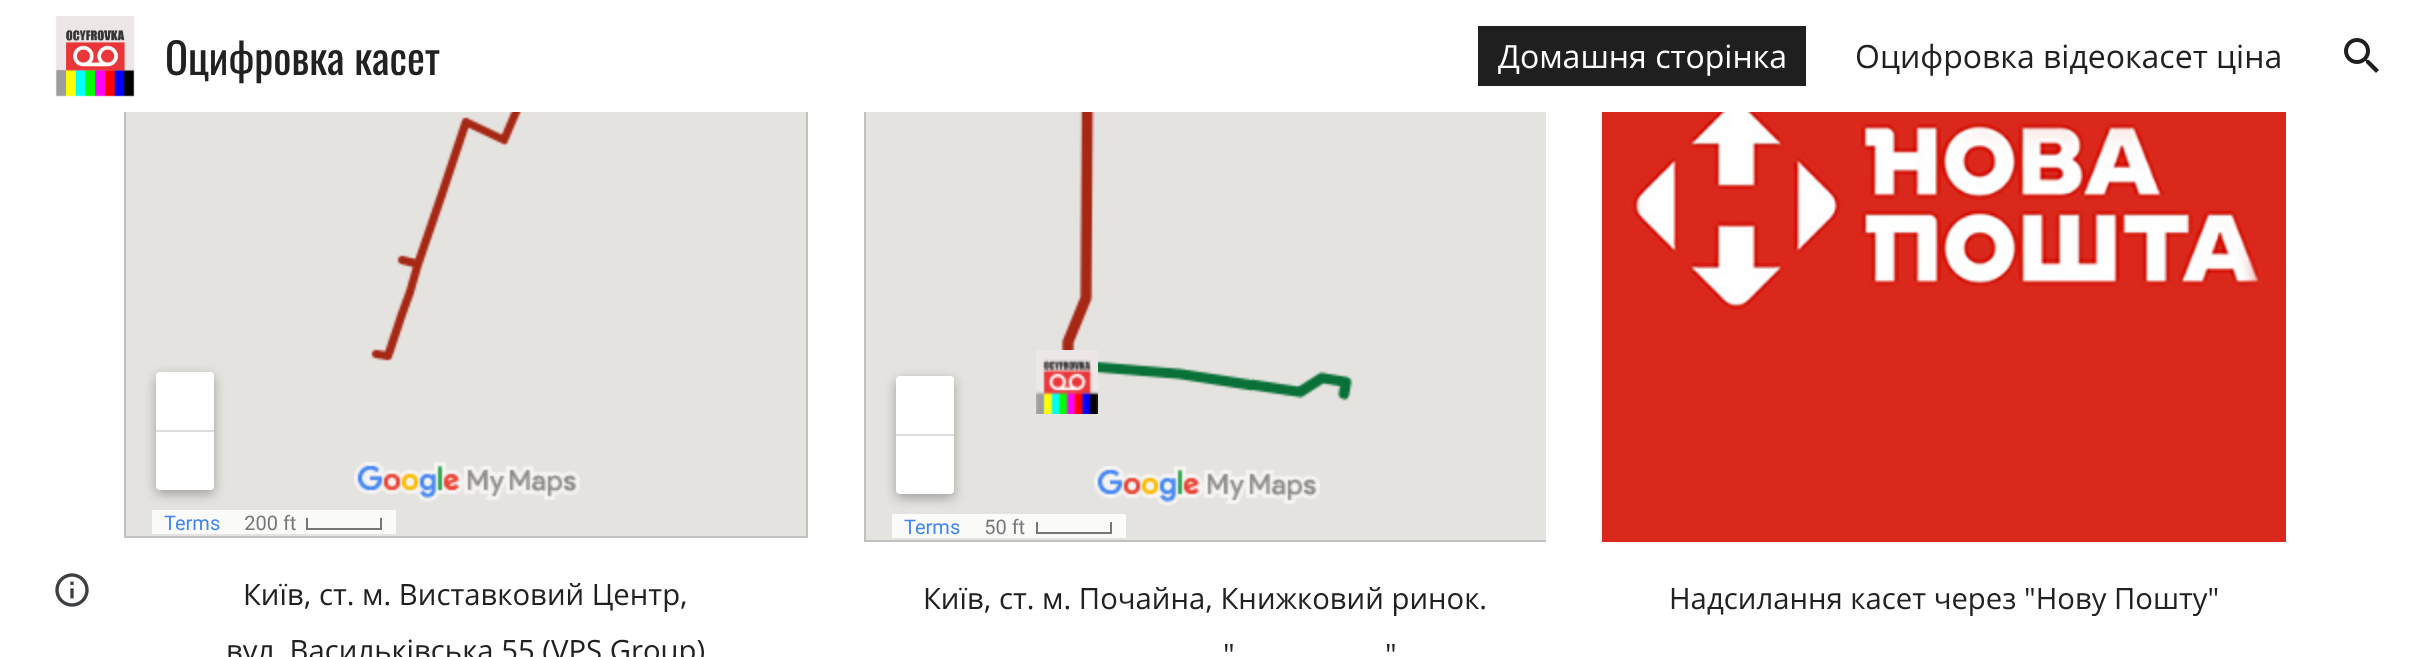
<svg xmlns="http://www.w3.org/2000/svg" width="2409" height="657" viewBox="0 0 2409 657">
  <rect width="100%" height="100%" fill="rgb(255,255,255)"/>
  <image x="55" y="16" width="80" height="81" href="pic1.png"/>
  <text x="165" y="75" font-family="Oswald" font-size="42.75" fill="rgb(33,33,33)">Оцифровка касет</text>
  <rect x="1478" y="26" width="328" height="60" fill="rgb(31,31,31)"/>
  <text x="1498" y="68" font-family="Open Sans" font-size="32" fill="rgb(255,255,255)">Домашня сторінка</text>
  <text x="1855" y="68" font-family="Open Sans" font-size="32" fill="rgb(33,33,33)">Оцифровка відеокасет ціна</text>
  <image x="2344" y="38" width="35" height="35" href="pic2.png"/>
  <image x="55" y="573" width="34" height="34" href="pic3.png"/>
  <image x="124" y="112" width="684" height="426" href="pic4.png"/>
  <g font-family="Open Sans" font-size="29.3" fill="rgb(33,33,33)">
    <text x="243" y="605">Київ, ст. м. Виставковий Центр,</text>
    <text x="226" y="661">вул. Васильківська 55 (VPS Group)</text>
  </g>
  <image x="864" y="112" width="682" height="430" href="pic5.png"/>
  <g font-family="Open Sans" font-size="29.3" fill="rgb(33,33,33)">
    <text x="923" y="609">Київ, ст. м. Почайна, Книжковий ринок.</text>
    <text x="1223" y="665">"</text>
    <text x="1385" y="665">"</text>
  </g>
  <image x="1602" y="112" width="684" height="430" href="pic6.png"/>
  <text x="1669" y="609" font-family="Open Sans" font-size="29.3" fill="rgb(33,33,33)">Надсилання касет через "Нову Пошту"</text>
</svg>
